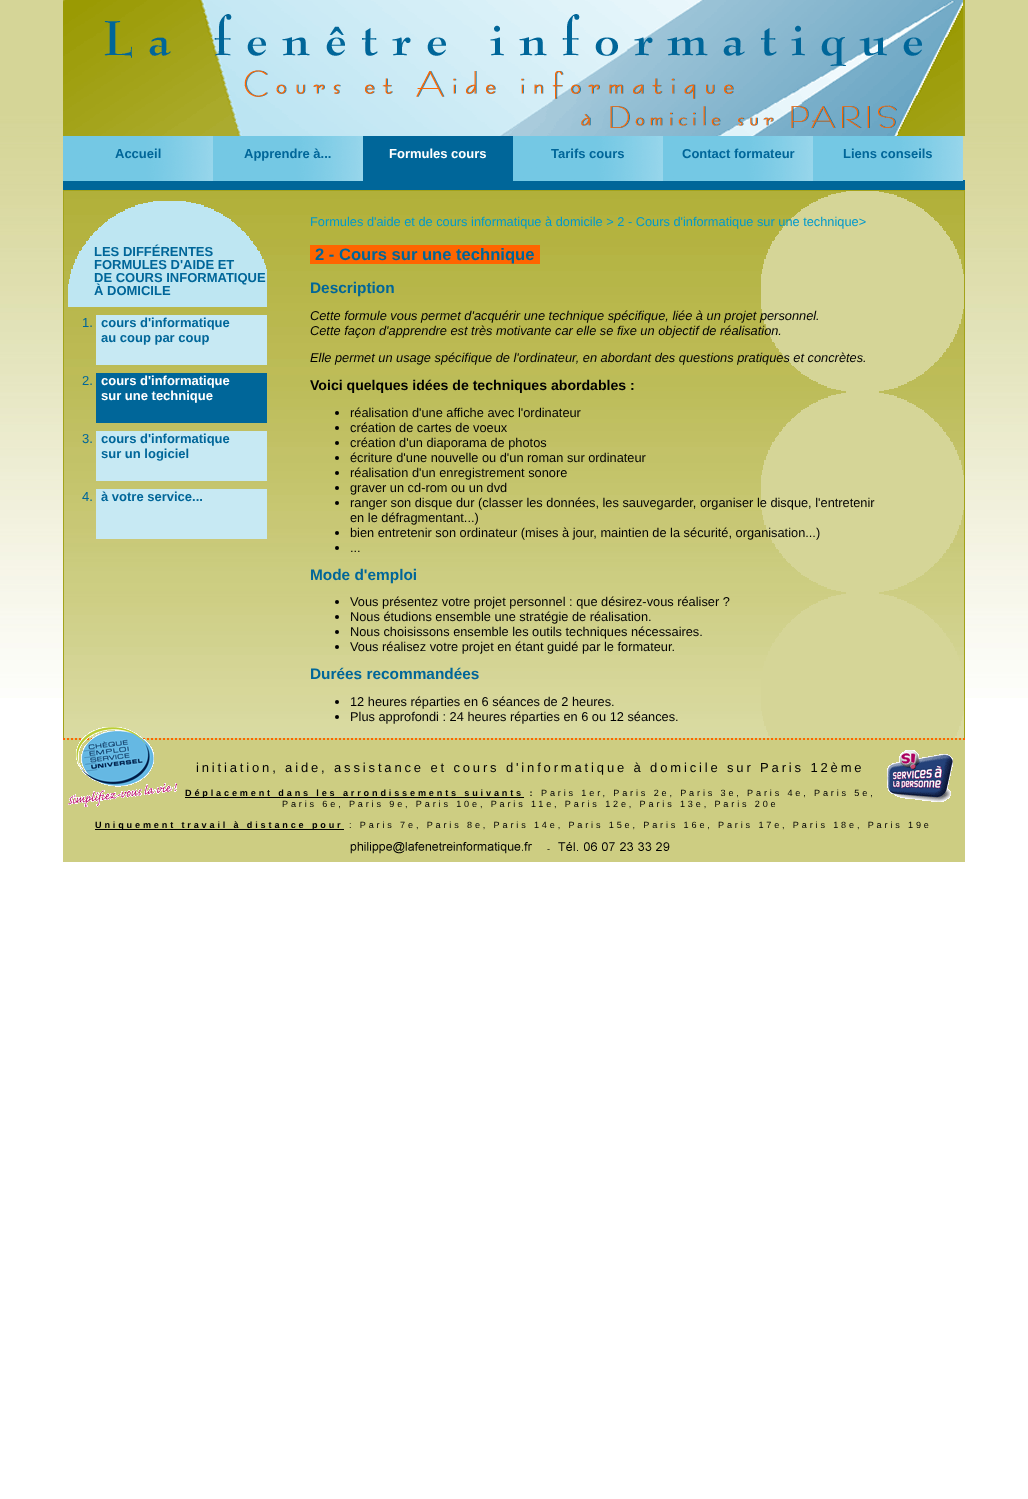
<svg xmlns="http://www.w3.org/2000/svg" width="1028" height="1499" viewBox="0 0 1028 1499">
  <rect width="100%" height="100%" fill="rgb(255,255,255)"/>
  <image x="0" y="0" width="1028" height="698" href="pic1.png"/>
  <rect x="963" y="0" width="2" height="136" fill="rgb(163,163,27)"/>
  <image x="63" y="0" width="900" height="136" href="pic2.png"/>
  <rect x="63" y="180" width="902" height="10" fill="rgb(0,102,153)"/>
  <image x="63" y="136" width="150" height="45" href="pic3.png"/>
  <text x="115" y="158" font-family="Liberation Sans" font-size="13" font-weight="bold" fill="rgb(0,102,153)">Accueil</text>
  <image x="213" y="136" width="150" height="45" href="pic3.png"/>
  <text x="244" y="158" font-family="Liberation Sans" font-size="13" font-weight="bold" fill="rgb(0,102,153)">Apprendre à...</text>
  <rect x="363" y="136" width="150" height="44" fill="rgb(0,102,153)"/>
  <text x="389" y="158" font-family="Liberation Sans" font-size="13" font-weight="bold" fill="rgb(255,255,255)">Formules cours</text>
  <image x="513" y="136" width="150" height="45" href="pic3.png"/>
  <text x="551" y="158" font-family="Liberation Sans" font-size="13" font-weight="bold" fill="rgb(0,102,153)">Tarifs cours</text>
  <image x="663" y="136" width="150" height="45" href="pic3.png"/>
  <text x="682" y="158" font-family="Liberation Sans" font-size="13" font-weight="bold" fill="rgb(0,102,153)">Contact formateur</text>
  <image x="813" y="136" width="150" height="45" href="pic3.png"/>
  <text x="843" y="158" font-family="Liberation Sans" font-size="13" font-weight="bold" fill="rgb(0,102,153)">Liens conseils</text>
  <image x="64" y="191" width="900" height="547" href="pic4.png"/>
  <rect x="63" y="190" width="902" height="1" fill="rgb(163,163,27)"/>
  <rect x="964" y="190" width="1" height="548" fill="rgb(163,163,27)"/>
  <rect x="63" y="190" width="1" height="548" fill="rgb(163,163,27)"/>
  <image x="761" y="191" width="203" height="547" href="pic5.png"/>
  <image x="68" y="201" width="199" height="106" href="pic6.png"/>
  <g font-family="Liberation Sans" font-size="13" font-weight="bold" fill="rgb(0,102,153)">
    <text>
      <tspan x="94" y="256">LES DIFFÉRENTES</tspan>
      <tspan x="94" y="269">FORMULES D'AIDE ET</tspan>
      <tspan x="94" y="282">DE COURS INFORMATIQUE</tspan>
      <tspan x="94" y="295">À DOMICILE</tspan>
    </text>
  </g>
  <rect x="96" y="315" width="171" height="50" fill="rgb(199,233,243)"/>
  <text x="82" y="327" font-family="Liberation Sans" font-size="13" fill="rgb(0,102,153)">1.</text>
  <g font-family="Liberation Sans" font-size="13" font-weight="bold" fill="rgb(0,102,153)">
    <text>
      <tspan x="101" y="327">cours d'informatique</tspan>
      <tspan x="101" y="342">au coup par coup</tspan>
    </text>
  </g>
  <text x="82" y="385" font-family="Liberation Sans" font-size="13" fill="rgb(0,102,153)">2.</text>
  <rect x="96" y="373" width="171" height="50" fill="rgb(0,102,153)"/>
  <g font-family="Liberation Sans" font-size="13" font-weight="bold" fill="rgb(255,255,255)">
    <text>
      <tspan x="101" y="385">cours d'informatique</tspan>
      <tspan x="101" y="400">sur une technique</tspan>
    </text>
  </g>
  <rect x="96" y="431" width="171" height="50" fill="rgb(199,233,243)"/>
  <text x="82" y="443" font-family="Liberation Sans" font-size="13" fill="rgb(0,102,153)">3.</text>
  <g font-family="Liberation Sans" font-size="13" font-weight="bold" fill="rgb(0,102,153)">
    <text>
      <tspan x="101" y="443">cours d'informatique</tspan>
      <tspan x="101" y="458">sur un logiciel</tspan>
    </text>
  </g>
  <rect x="96" y="489" width="171" height="50" fill="rgb(199,233,243)"/>
  <text x="82" y="501" font-family="Liberation Sans" font-size="13" fill="rgb(0,102,153)">4.</text>
  <text x="101" y="501" font-family="Liberation Sans" font-size="13" font-weight="bold" fill="rgb(0,102,153)">à votre service...</text>
  <text x="310" y="226" font-family="Liberation Sans" font-size="12.8" fill="rgb(0,153,204)">Formules d'aide et de cours informatique à domicile &gt; 2 - Cours d'informatique sur une technique&gt;</text>
  <rect x="310" y="245" width="230" height="19" fill="rgb(255,101,0)"/>
  <text x="315" y="260" font-family="Liberation Sans" font-size="16.6" font-weight="bold" fill="rgb(0,102,153)">2 - Cours sur une technique</text>
  <text x="310" y="293" font-family="Liberation Sans" font-size="15.4" font-weight="bold" fill="rgb(0,102,153)">Description</text>
  <g font-family="Liberation Sans" font-size="12.8" font-style="italic" fill="rgb(0,0,0)">
    <text>
      <tspan x="310" y="320">Cette formule vous permet d'acquérir une technique spécifique, liée à un projet personnel.</tspan>
      <tspan x="310" y="335">Cette façon d'apprendre est très motivante car elle se fixe un objectif de réalisation.</tspan>
    </text>
    <text x="310" y="362">Elle permet un usage spécifique de l'ordinateur, en abordant des questions pratiques et concrètes.</text>
  </g>
  <text x="310" y="390" font-family="Liberation Sans" font-size="14.1" font-weight="bold" fill="rgb(0,0,0)">Voici quelques idées de techniques abordables :</text>
  <circle cx="337" cy="413" r="2" fill="rgb(0,0,0)"/>
  <text x="350" y="417" font-family="Liberation Sans" font-size="12.8" fill="rgb(0,0,0)">réalisation d'une affiche avec l'ordinateur</text>
  <circle cx="337" cy="428" r="2" fill="rgb(0,0,0)"/>
  <text x="350" y="432" font-family="Liberation Sans" font-size="12.8" fill="rgb(0,0,0)">création de cartes de voeux</text>
  <circle cx="337" cy="443" r="2" fill="rgb(0,0,0)"/>
  <text x="350" y="447" font-family="Liberation Sans" font-size="12.8" fill="rgb(0,0,0)">création d'un diaporama de photos</text>
  <circle cx="337" cy="458" r="2" fill="rgb(0,0,0)"/>
  <text x="350" y="462" font-family="Liberation Sans" font-size="12.8" fill="rgb(0,0,0)">écriture d'une nouvelle ou d'un roman sur ordinateur</text>
  <circle cx="337" cy="473" r="2" fill="rgb(0,0,0)"/>
  <text x="350" y="477" font-family="Liberation Sans" font-size="12.8" fill="rgb(0,0,0)">réalisation d'un enregistrement sonore</text>
  <circle cx="337" cy="488" r="2" fill="rgb(0,0,0)"/>
  <text x="350" y="492" font-family="Liberation Sans" font-size="12.8" fill="rgb(0,0,0)">graver un cd-rom ou un dvd</text>
  <circle cx="337" cy="503" r="2" fill="rgb(0,0,0)"/>
  <g font-family="Liberation Sans" font-size="12.8" fill="rgb(0,0,0)">
    <text>
      <tspan x="350" y="507">ranger son disque dur (classer les données, les sauvegarder, organiser le disque, l'entretenir</tspan>
      <tspan x="350" y="522">en le défragmentant...)</tspan>
    </text>
  </g>
  <circle cx="337" cy="533" r="2" fill="rgb(0,0,0)"/>
  <text x="350" y="537" font-family="Liberation Sans" font-size="12.8" fill="rgb(0,0,0)">bien entretenir son ordinateur (mises à jour, maintien de la sécurité, organisation...)</text>
  <circle cx="337" cy="548" r="2" fill="rgb(0,0,0)"/>
  <text x="350" y="552" font-family="Liberation Sans" font-size="12.8" fill="rgb(0,0,0)">...</text>
  <text x="310" y="580" font-family="Liberation Sans" font-size="15.4" font-weight="bold" fill="rgb(0,102,153)">Mode d'emploi</text>
  <circle cx="337" cy="602" r="2" fill="rgb(0,0,0)"/>
  <text x="350" y="606" font-family="Liberation Sans" font-size="12.8" fill="rgb(0,0,0)">Vous présentez votre projet personnel : que désirez-vous réaliser ?</text>
  <circle cx="337" cy="617" r="2" fill="rgb(0,0,0)"/>
  <text x="350" y="621" font-family="Liberation Sans" font-size="12.8" fill="rgb(0,0,0)">Nous étudions ensemble une stratégie de réalisation.</text>
  <circle cx="337" cy="632" r="2" fill="rgb(0,0,0)"/>
  <text x="350" y="636" font-family="Liberation Sans" font-size="12.8" fill="rgb(0,0,0)">Nous choisissons ensemble les outils techniques nécessaires.</text>
  <circle cx="337" cy="647" r="2" fill="rgb(0,0,0)"/>
  <text x="350" y="651" font-family="Liberation Sans" font-size="12.8" fill="rgb(0,0,0)">Vous réalisez votre projet en étant guidé par le formateur.</text>
  <text x="310" y="679" font-family="Liberation Sans" font-size="15.4" font-weight="bold" fill="rgb(0,102,153)">Durées recommandées</text>
  <circle cx="337" cy="702" r="2" fill="rgb(0,0,0)"/>
  <text x="350" y="706" font-family="Liberation Sans" font-size="12.8" fill="rgb(0,0,0)">12 heures réparties en 6 séances de 2 heures.</text>
  <circle cx="337" cy="717" r="2" fill="rgb(0,0,0)"/>
  <text x="350" y="721" font-family="Liberation Sans" font-size="12.8" fill="rgb(0,0,0)">Plus approfondi : 24 heures réparties en 6 ou 12 séances.</text>
  <rect x="63" y="738" width="902" height="124" fill="rgb(205,205,130)"/>
  <path d="M63 739H965" fill="none" stroke="rgb(255,101,0)" stroke-width="2" stroke-dasharray="2 2"/>
  <image x="68" y="727" width="109" height="80" href="pic7.png"/>
  <text x="196" y="772" font-family="Liberation Sans" font-size="13" letter-spacing="2.85" fill="rgb(0,0,0)">initiation, aide, assistance et cours d'informatique à domicile sur Paris 12ème</text>
  <image x="887" y="750" width="66" height="52" href="pic8.png"/>
  <rect x="185" y="797" width="339" height="1" fill="rgb(0,0,0)"/>
  <text x="185" y="796" font-family="Liberation Sans" font-size="9.1" font-weight="bold" letter-spacing="2.85" fill="rgb(0,0,0)">Déplacement dans les arrondissements suivants :</text>
  <g font-family="Liberation Sans" font-size="9.1" letter-spacing="2.85" fill="rgb(0,0,0)">
    <text x="541" y="796">Paris 1er, Paris 2e, Paris 3e, Paris 4e, Paris 5e,</text>
    <text x="282" y="807">Paris 6e, Paris 9e, Paris 10e, Paris 11e, Paris 12e, Paris 13e, Paris 20e</text>
  </g>
  <rect x="95" y="829" width="249" height="1" fill="rgb(0,0,0)"/>
  <text x="95" y="828" font-family="Liberation Sans" font-size="9.1" font-weight="bold" letter-spacing="2.85" fill="rgb(0,0,0)">Uniquement travail à distance pour</text>
  <text x="349" y="828" font-family="Liberation Sans" font-size="9.1" letter-spacing="2.85" fill="rgb(0,0,0)">: Paris 7e, Paris 8e, Paris 14e, Paris 15e, Paris 16e, Paris 17e, Paris 18e, Paris 19e</text>
  <image x="350" y="842" width="182" height="12" href="pic9.png"/>
  <text x="547" y="852" font-family="Liberation Sans" font-size="9.1" letter-spacing="2.85" fill="rgb(0,0,0)">-</text>
  <image x="558" y="842" width="112" height="9" href="pic10.png"/>
</svg>
